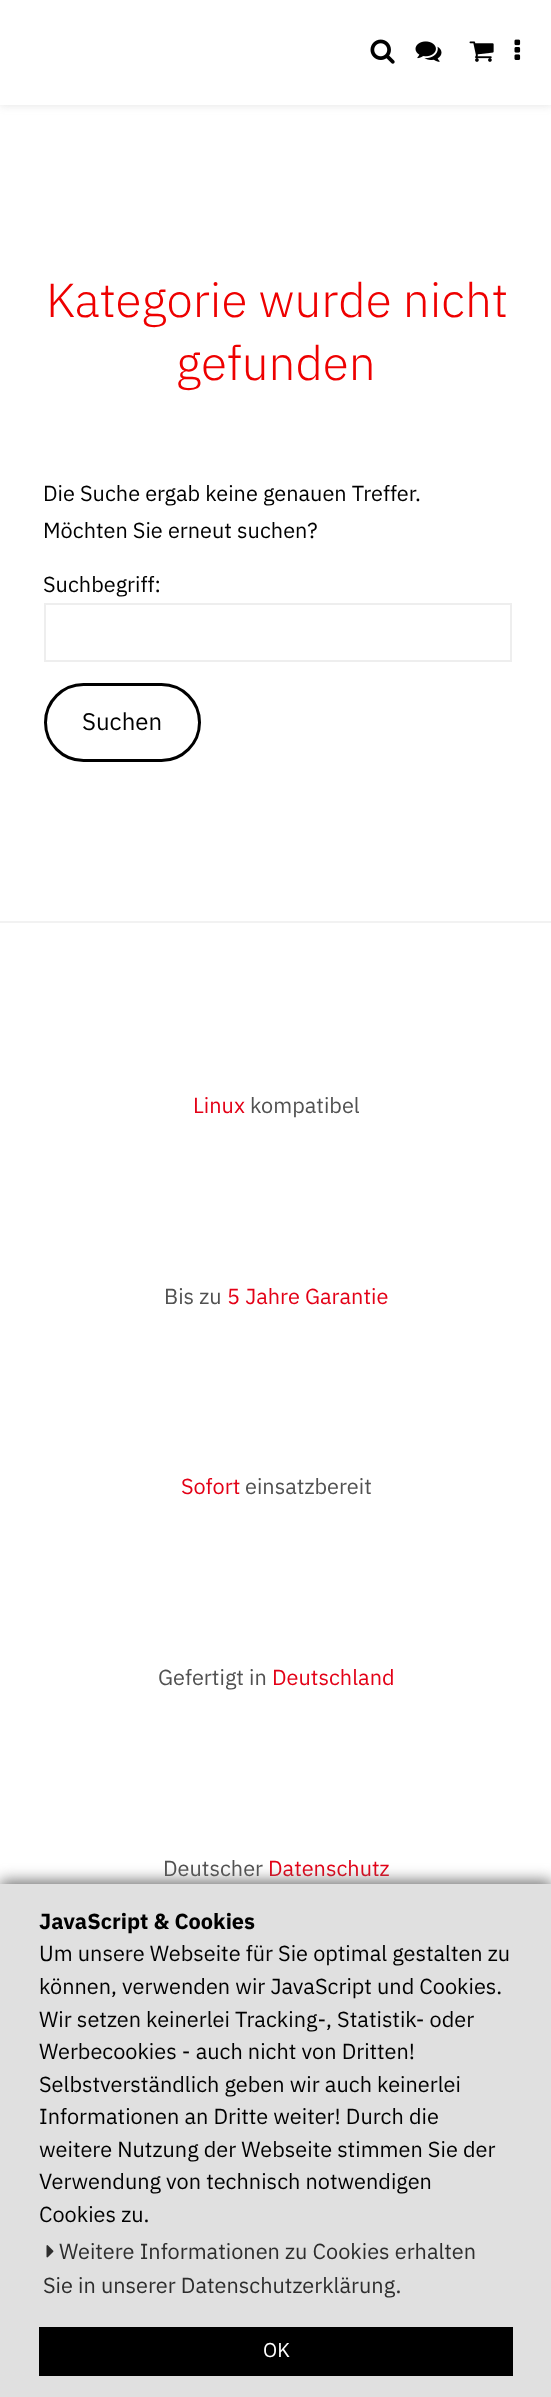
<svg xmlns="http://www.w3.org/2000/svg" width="551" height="2397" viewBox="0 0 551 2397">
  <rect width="100%" height="100%" fill="rgb(255,255,255)"/>
  <rect x="0" y="0" width="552" height="105" fill="rgba(112,112,112,0.2)" filter="blur(5px)"/>
  <rect x="0" y="0" width="551" height="105" fill="rgb(255,255,255)"/>
  <image x="370" y="39" width="25" height="25" href="pic1.png"/>
  <image x="415" y="41" width="27" height="21" href="pic2.png"/>
  <image x="469" y="41" width="25" height="21" href="pic3.png"/>
  <image x="514" y="39" width="7" height="21" href="pic4.png"/>
  <g font-family="IBM Plex Sans" font-size="47.75" font-weight="300" fill="rgb(238,0,0)">
    <text x="46" y="317">Kategorie wurde nicht</text>
    <text x="176" y="380">gefunden</text>
  </g>
  <g font-family="IBM Plex Sans" font-size="21.7" fill="rgb(0,0,0)">
    <text>
      <tspan x="43" y="501">Die Suche ergab keine genauen Treffer.</tspan>
      <tspan x="43" y="538">Möchten Sie erneut suchen?</tspan>
    </text>
    <text x="43" y="592">Suchbegriff:</text>
  </g>
  <rect x="45" y="604" width="466" height="57" fill="none" stroke="rgb(238,238,238)" stroke-width="2"/>
  <rect x="45.5" y="684.5" width="154" height="76" rx="38" fill="none" stroke="rgb(0,0,0)" stroke-width="3"/>
  <text x="82" y="730" font-family="IBM Plex Sans" font-size="24" fill="rgb(0,0,0)">Suchen</text>
  <rect x="0" y="921" width="551" height="2" fill="rgb(242,242,242)"/>
  <text x="193" y="1113" font-family="IBM Plex Sans" font-size="21.7" fill="rgb(227,0,22)">Linux</text>
  <g font-family="IBM Plex Sans" font-size="21.7" fill="rgb(81,81,81)">
    <text x="250" y="1113">kompatibel</text>
    <text x="164" y="1304">Bis zu</text>
  </g>
  <g font-family="IBM Plex Sans" font-size="21.7" fill="rgb(227,0,22)">
    <text x="227" y="1304">5 Jahre Garantie</text>
    <text x="181" y="1494">Sofort</text>
  </g>
  <g font-family="IBM Plex Sans" font-size="21.7" fill="rgb(81,81,81)">
    <text x="245" y="1494">einsatzbereit</text>
    <text x="158" y="1685">Gefertigt in</text>
  </g>
  <text x="272" y="1685" font-family="IBM Plex Sans" font-size="21.7" fill="rgb(227,0,22)">Deutschland</text>
  <text x="163" y="1876" font-family="IBM Plex Sans" font-size="21.7" fill="rgb(81,81,81)">Deutscher</text>
  <text x="268" y="1876" font-family="IBM Plex Sans" font-size="21.7" fill="rgb(227,0,22)">Datenschutz</text>
  <rect x="0" y="1881" width="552" height="513" fill="rgb(112,112,112)" filter="blur(7.5px)"/>
  <rect x="0" y="1884" width="551" height="513" fill="rgb(224,224,224)"/>
  <text x="39" y="1929" font-family="IBM Plex Sans" font-size="21.75" font-weight="bold" fill="rgb(0,0,0)">JavaScript &amp; Cookies</text>
  <g font-family="IBM Plex Sans" font-size="21.7" fill="rgb(0,0,0)">
    <text>
      <tspan x="39" y="1961">Um unsere Webseite für Sie optimal gestalten zu</tspan>
      <tspan x="39" y="1994">können, verwenden wir JavaScript und Cookies.</tspan>
      <tspan x="39" y="2027">Wir setzen keinerlei Tracking-, Statistik- oder</tspan>
      <tspan x="39" y="2059">Werbecookies - auch nicht von Dritten!</tspan>
      <tspan x="39" y="2092">Selbstverständlich geben wir auch keinerlei</tspan>
      <tspan x="39" y="2124">Informationen an Dritte weiter! Durch die</tspan>
      <tspan x="39" y="2157">weitere Nutzung der Webseite stimmen Sie der</tspan>
      <tspan x="39" y="2189">Verwendung von technisch notwendigen</tspan>
      <tspan x="39" y="2222">Cookies zu.</tspan>
    </text>
  </g>
  <image x="46" y="2245" width="8" height="13" href="pic5.png"/>
  <g font-family="IBM Plex Sans" font-size="21.7" fill="rgb(45,45,45)">
    <text x="59" y="2259">Weitere Informationen zu Cookies erhalten</text>
    <text x="43" y="2293">Sie in unserer Datenschutzerklärung.</text>
  </g>
  <rect x="39" y="2327" width="474" height="49" fill="rgb(0,0,0)"/>
  <text x="263" y="2357" font-family="IBM Plex Sans" font-size="20" fill="rgb(255,255,255)">OK</text>
</svg>
